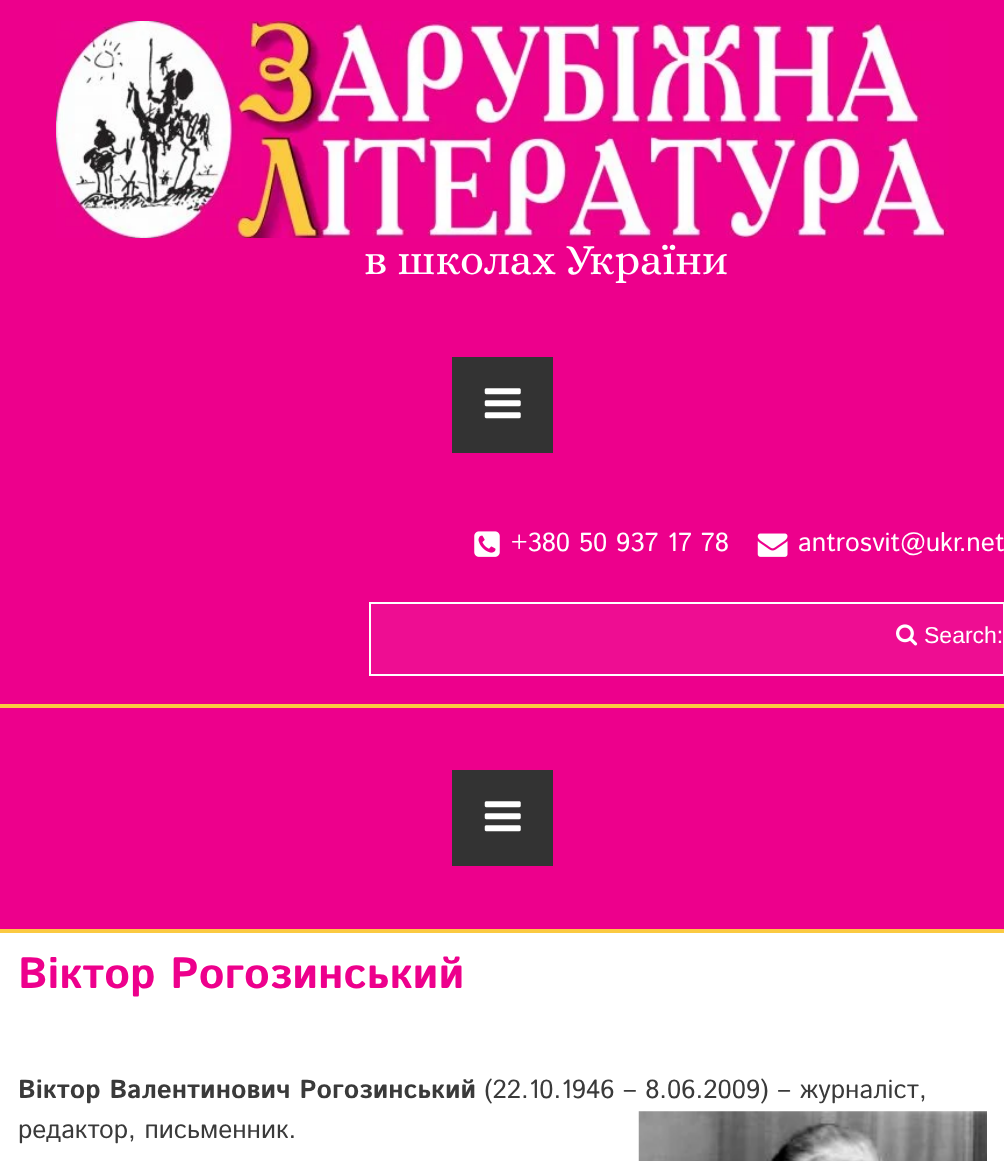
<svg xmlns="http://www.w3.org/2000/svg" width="1004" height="1161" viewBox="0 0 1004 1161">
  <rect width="100%" height="100%" fill="rgb(255,255,255)"/>
  <rect x="0" y="0" width="1004" height="704" fill="rgb(237,0,140)"/>
  <rect x="0" y="704" width="1004" height="4" fill="rgb(251,202,65)"/>
  <image x="56" y="21" width="893" height="217" href="pic1.png"/>
  <text x="364" y="274" font-family="Alice" font-size="43.75" fill="rgb(255,255,255)">в школах України</text>
  <rect x="452" y="357" width="101" height="96" fill="rgb(51,51,51)"/>
  <image x="484" y="388" width="37" height="31" href="pic2.png"/>
  <image x="474" y="531" width="26" height="26" href="pic3.png"/>
  <text x="511" y="551" font-family="Istok Web" font-size="26.25" fill="rgb(255,255,255)">+380 50 937 17 78</text>
  <image x="757" y="533" width="31" height="24" href="pic4.png"/>
  <text x="798" y="551" font-family="Istok Web" font-size="26.25" fill="rgb(255,255,255)">antrosvit@ukr.net</text>
  <rect x="370" y="603" width="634" height="72" fill="rgb(238,13,146)" stroke="rgb(255,255,255)" stroke-width="2"/>
  <image x="896" y="624" width="22" height="22" href="pic5.png"/>
  <text x="924" y="643" font-family="Liberation Sans" font-size="23" fill="rgb(255,255,255)">Search:</text>
  <rect x="0" y="708" width="1004" height="221" fill="rgb(237,0,140)"/>
  <rect x="0" y="929" width="1004" height="4" fill="rgb(251,202,65)"/>
  <rect x="452" y="770" width="101" height="96" fill="rgb(51,51,51)"/>
  <image x="484" y="801" width="37" height="31" href="pic2.png"/>
  <text x="18" y="988" font-family="Istok Web" font-size="43.75" font-weight="bold" fill="rgb(237,0,140)">Віктор Рогозинський</text>
  <text x="18" y="1098" font-family="Istok Web" font-size="26.25" font-weight="bold" fill="rgb(58,58,58)">Віктор Валентинович Рогозинський</text>
  <g font-family="Istok Web" font-size="26.25" fill="rgb(58,58,58)">
    <text x="484" y="1098">(22.10.1946 – 8.06.2009) – журналіст,</text>
    <text x="18" y="1138">редактор, письменник.</text>
  </g>
  <image x="638" y="1111" width="349" height="50" href="pic6.png"/>
</svg>
